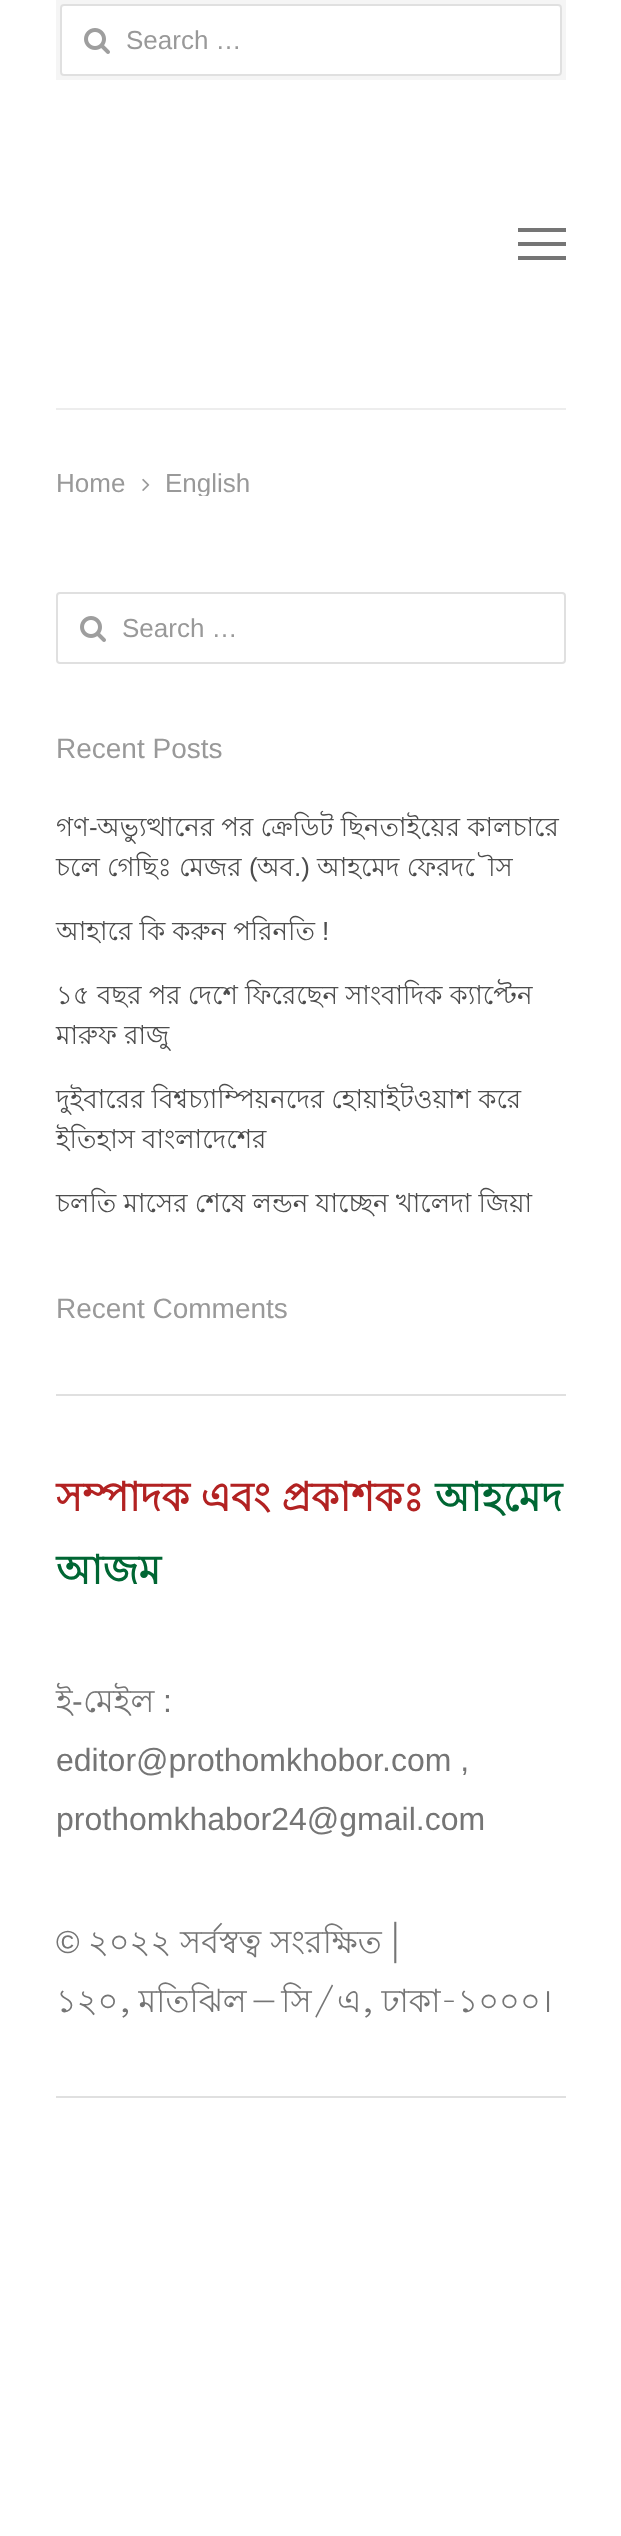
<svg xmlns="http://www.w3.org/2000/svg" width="621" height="2536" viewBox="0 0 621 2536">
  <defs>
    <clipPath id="clip1"><rect x="56" y="456" width="510" height="40"/></clipPath>
  </defs>
  <rect width="100%" height="100%" fill="rgb(255,255,255)"/>
  <rect x="56" y="0" width="510" height="80" fill="rgb(245,245,245)"/>
  <rect x="60" y="4" width="502" height="72" rx="4" fill="rgb(255,255,255)"/>
  <rect x="61" y="5" width="500" height="70" rx="3" fill="none" stroke="rgba(0,0,0,0.12)" stroke-width="2"/>
  <image x="84" y="28" width="26" height="26" href="pic1.png"/>
  <text x="126" y="49" font-family="Liberation Sans" font-size="26" fill="rgb(153,153,153)">Search …</text>
  <rect x="56" y="408" width="510" height="2" fill="rgb(237,237,237)"/>
  <rect x="518" y="228" width="48" height="4" fill="rgb(117,117,117)"/>
  <rect x="518" y="242" width="48" height="4" fill="rgb(117,117,117)"/>
  <rect x="518" y="256" width="48" height="4" fill="rgb(117,117,117)"/>
  <text x="56" y="492" font-family="Liberation Sans" font-size="26" fill="rgb(153,153,153)">Home</text>
  <image x="142" y="478" width="8" height="13" href="pic2.png"/>
  <g clip-path="url(#clip1)">
    <text x="165" y="492" font-family="Liberation Sans" font-size="26" fill="rgb(153,153,153)">English</text>
  </g>
  <rect x="57" y="593" width="508" height="70" rx="3" fill="none" stroke="rgb(224,224,224)" stroke-width="2"/>
  <image x="80" y="616" width="26" height="26" href="pic1.png"/>
  <text x="122" y="637" font-family="Liberation Sans" font-size="26" fill="rgb(153,153,153)">Search …</text>
  <text x="56" y="758" font-family="Liberation Sans" font-size="28" fill="rgb(153,153,153)">Recent Posts</text>
  <text x="56" y="836" font-family="Lohit Bengali" font-size="26" fill="rgb(77,77,77)">গণ</text>
  <text x="89" y="836" font-family="Liberation Sans" font-size="26" fill="rgb(77,77,77)">-</text>
  <g font-family="Lohit Bengali" font-size="26" fill="rgb(77,77,77)">
    <text x="97" y="836">অভ্যুত্থানের পর ক্রেডিট ছিনতাইয়ের কালচারে</text>
    <text x="56" y="876">চলে গেছিঃ মেজর</text>
  </g>
  <text x="249" y="876" font-family="Liberation Sans" font-size="26" fill="rgb(77,77,77)">(</text>
  <text x="257" y="876" font-family="Lohit Bengali" font-size="26" fill="rgb(77,77,77)">অব</text>
  <text x="294" y="876" font-family="Liberation Sans" font-size="26" fill="rgb(77,77,77)">.)</text>
  <g font-family="Lohit Bengali" font-size="26" fill="rgb(77,77,77)">
    <text x="317" y="876">আহমেদ ফেরদৌস</text>
    <text x="56" y="940">আহারে কি করুন পরিনতি</text>
  </g>
  <text x="322" y="940" font-family="Liberation Sans" font-size="26" fill="rgb(77,77,77)">!</text>
  <g font-family="Lohit Bengali" font-size="26" fill="rgb(77,77,77)">
    <text>
      <tspan x="56" y="1004">১৫ বছর পর দেশে ফিরেছেন সাংবাদিক ক্যাপ্টেন</tspan>
      <tspan x="56" y="1044">মারুফ রাজু</tspan>
    </text>
    <text>
      <tspan x="56" y="1108">দুইবারের বিশ্বচ্যাম্পিয়নদের হোয়াইটওয়াশ করে</tspan>
      <tspan x="56" y="1148">ইতিহাস বাংলাদেশের</tspan>
    </text>
    <text x="56" y="1212">চলতি মাসের শেষে লন্ডন যাচ্ছেন খালেদা জিয়া</text>
  </g>
  <text x="56" y="1318" font-family="Liberation Sans" font-size="28" fill="rgb(153,153,153)">Recent Comments</text>
  <rect x="56" y="1394" width="510" height="2" fill="rgb(224,224,224)"/>
  <text x="56" y="1511" font-family="Lohit Bengali" font-size="40" font-weight="bold" fill="rgb(178,34,34)">সম্পাদক এবং প্রকাশকঃ</text>
  <g font-family="Lohit Bengali" font-size="40" font-weight="bold" fill="rgb(0,102,51)">
    <text x="435" y="1511">আহমেদ</text>
    <text x="56" y="1584">আজম</text>
  </g>
  <text x="56" y="1712" font-family="Lohit Bengali" font-size="32" fill="rgb(117,117,117)">ই</text>
  <text x="72" y="1712" font-family="Liberation Sans" font-size="32" fill="rgb(117,117,117)">-</text>
  <text x="83" y="1712" font-family="Lohit Bengali" font-size="32" fill="rgb(117,117,117)">মেইল</text>
  <g font-family="Liberation Sans" font-size="32" fill="rgb(117,117,117)">
    <text x="163" y="1712">:</text>
    <text>
      <tspan x="56" y="1771">editor@prothomkhobor.com ,</tspan>
      <tspan x="56" y="1830">prothomkhabor24@gmail.com</tspan>
    </text>
    <text x="56" y="1953">©</text>
  </g>
  <g font-family="Lohit Bengali" font-size="32" fill="rgb(117,117,117)">
    <text x="88" y="1953">২০২২ সর্বস্বত্ব সংরক্ষিত |</text>
    <text x="56" y="2012" word-spacing="-2">১২০, মতিঝিল – সি/এ, ঢাকা-১০০০।</text>
  </g>
  <rect x="56" y="2096" width="510" height="2" fill="rgb(224,224,224)"/>
</svg>
